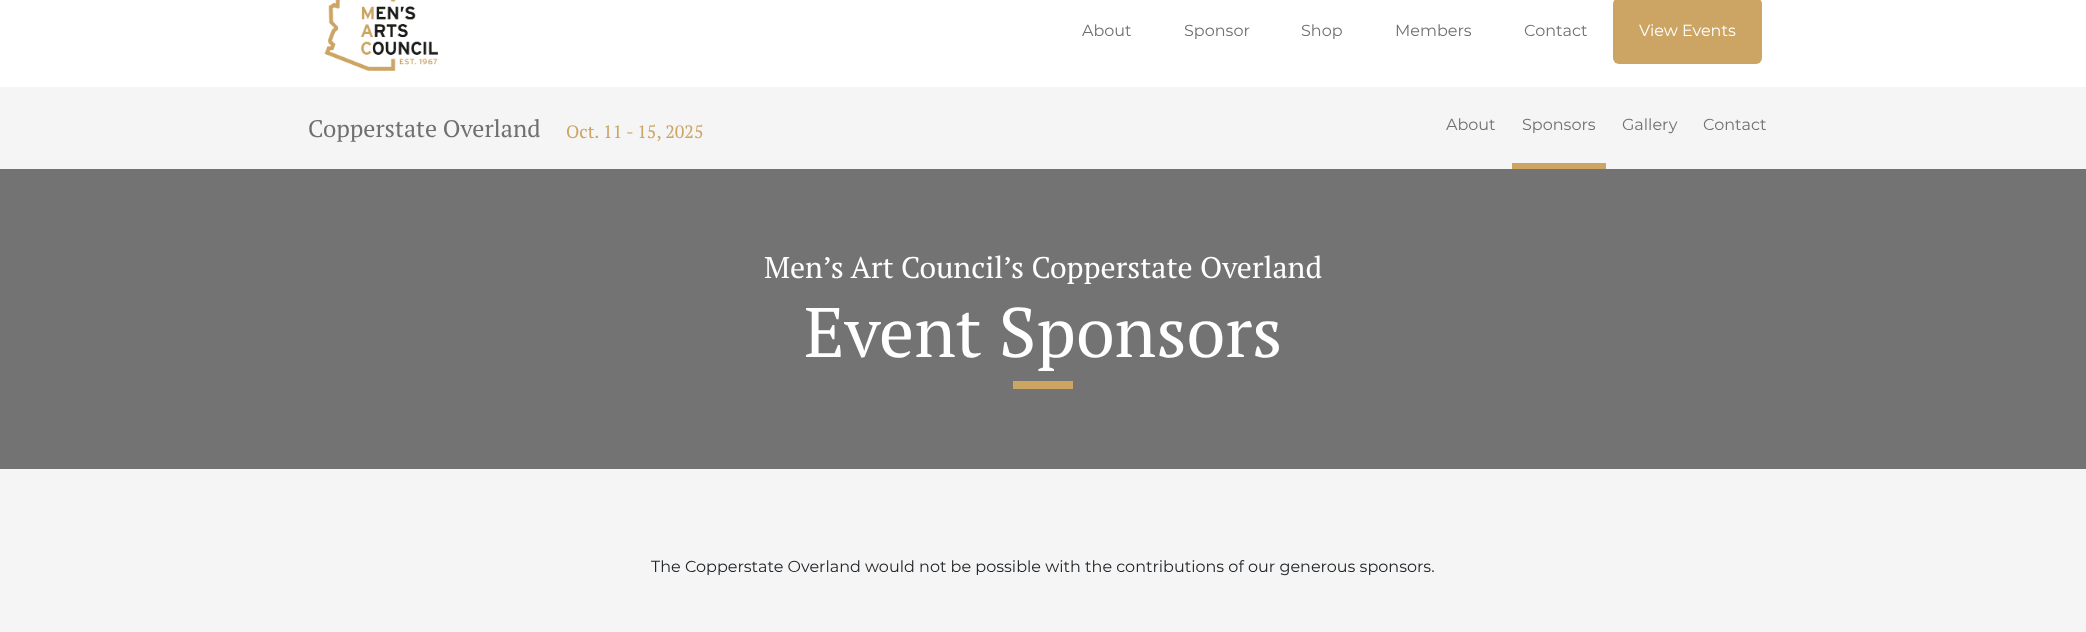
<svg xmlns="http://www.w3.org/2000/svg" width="2086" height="632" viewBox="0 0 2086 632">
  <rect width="100%" height="100%" fill="rgb(255,255,255)"/>
  <image x="324" y="0" width="114" height="71" href="pic1.png"/>
  <g font-family="Montserrat" font-size="16" fill="rgb(112,112,112)">
    <text x="1082" y="36">About</text>
    <text x="1184" y="36">Sponsor</text>
    <text x="1301" y="36">Shop</text>
    <text x="1395" y="36">Members</text>
    <text x="1524" y="36">Contact</text>
  </g>
  <rect x="1613" y="-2" width="149" height="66" rx="6" fill="rgb(204,165,100)"/>
  <text x="1639" y="36" font-family="Montserrat" font-size="16" fill="rgb(255,255,255)">View Events</text>
  <rect x="0" y="87" width="2086" height="82" fill="rgb(245,245,245)"/>
  <text x="308" y="137" font-family="PT Serif" font-size="24" fill="rgb(112,112,112)">Copperstate Overland</text>
  <text x="566" y="138" font-family="PT Serif" font-size="18" fill="rgb(204,165,100)">Oct. 11 - 15, 2025</text>
  <text x="1446" y="130" font-family="Montserrat" font-size="16" fill="rgb(112,112,112)">About</text>
  <rect x="1512" y="163" width="94" height="6" fill="rgb(204,165,100)"/>
  <g font-family="Montserrat" font-size="16" fill="rgb(112,112,112)">
    <text x="1522" y="130">Sponsors</text>
    <text x="1622" y="130">Gallery</text>
    <text x="1703" y="130">Contact</text>
  </g>
  <rect x="0" y="169" width="2086" height="300" fill="rgb(115,115,115)"/>
  <text x="764" y="278" font-family="PT Serif" font-size="30" fill="rgb(255,255,255)">Men’s Art Council’s Copperstate Overland</text>
  <text x="804" y="357" font-family="PT Serif" font-size="70" fill="rgb(255,255,255)">Event Sponsors</text>
  <rect x="1013" y="381" width="60" height="8" fill="rgb(204,165,100)"/>
  <rect x="0" y="469" width="2086" height="163" fill="rgb(245,245,245)"/>
  <text x="651" y="572" font-family="Montserrat" font-size="16" fill="rgb(33,37,41)">The Copperstate Overland would not be possible with the contributions of our generous sponsors.</text>
</svg>
